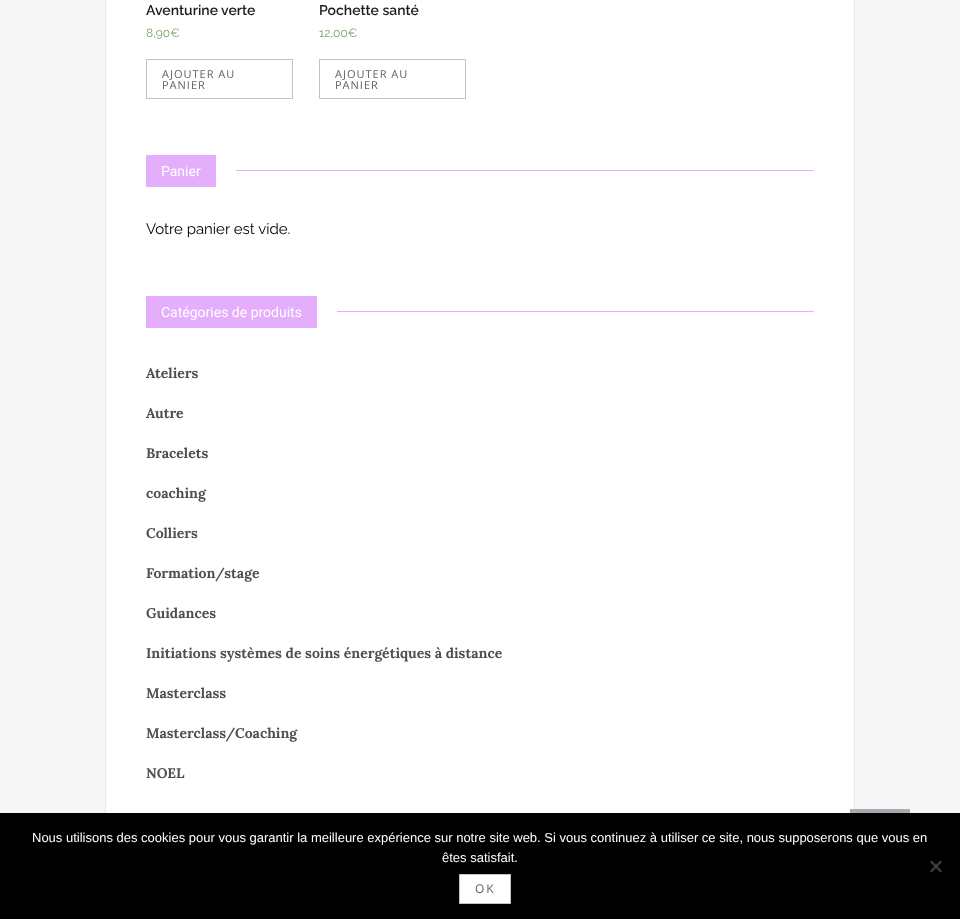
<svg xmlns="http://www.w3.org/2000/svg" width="960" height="919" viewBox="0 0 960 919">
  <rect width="100%" height="100%" fill="rgb(246,246,246)"/>
  <rect x="106" y="0" width="748" height="813" fill="rgb(255,255,255)"/>
  <rect x="105.5" y="-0.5" width="749" height="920" fill="none" stroke="rgb(234,234,234)"/>
  <text x="146" y="15" font-family="Raleway" font-size="14" font-weight="600" fill="rgb(29,29,29)">Aventurine verte</text>
  <text x="146" y="37" font-family="Raleway" font-size="12" fill="rgb(119,164,100)">8,90€</text>
  <rect x="146.5" y="59.5" width="146" height="39" fill="none" stroke="rgb(195,195,195)"/>
  <g font-family="Open Sans" font-size="11" letter-spacing="1" fill="rgb(97,98,105)">
    <text>
      <tspan x="162" y="78">AJOUTER AU</tspan>
      <tspan x="162" y="89">PANIER</tspan>
    </text>
  </g>
  <text x="319" y="15" font-family="Raleway" font-size="14" font-weight="600" fill="rgb(29,29,29)">Pochette santé</text>
  <text x="319" y="37" font-family="Raleway" font-size="12" fill="rgb(119,164,100)">12,00€</text>
  <rect x="319.5" y="59.5" width="146" height="39" fill="none" stroke="rgb(195,195,195)"/>
  <g font-family="Open Sans" font-size="11" letter-spacing="1" fill="rgb(97,98,105)">
    <text>
      <tspan x="335" y="78">AJOUTER AU</tspan>
      <tspan x="335" y="89">PANIER</tspan>
    </text>
  </g>
  <rect x="146" y="155" width="70" height="32" fill="rgb(228,174,252)"/>
  <text x="161" y="176" font-family="Roboto" font-size="14" fill="rgb(255,255,255)">Panier</text>
  <rect x="236" y="170" width="578" height="1" fill="rgb(228,174,252)"/>
  <text x="146" y="234" font-family="Raleway" font-size="15" fill="rgb(0,0,0)">Votre panier est vide.</text>
  <rect x="146" y="296" width="171" height="32" fill="rgb(228,174,252)"/>
  <text x="161" y="317" font-family="Roboto" font-size="14" fill="rgb(255,255,255)">Catégories de produits</text>
  <rect x="337" y="311" width="477" height="1" fill="rgb(228,174,252)"/>
  <g font-family="Lora" font-size="14" font-weight="bold" fill="rgb(79,79,82)">
    <text x="146" y="378">Ateliers</text>
    <text x="146" y="418">Autre</text>
    <text x="146" y="458">Bracelets</text>
    <text x="146" y="498">coaching</text>
    <text x="146" y="538">Colliers</text>
    <text x="146" y="578">Formation/stage</text>
    <text x="146" y="618">Guidances</text>
    <text x="146" y="658">Initiations systèmes de soins énergétiques à distance</text>
    <text x="146" y="698">Masterclass</text>
    <text x="146" y="738">Masterclass/Coaching</text>
    <text x="146" y="778">NOEL</text>
  </g>
  <rect x="850" y="809" width="60" height="4" fill="rgb(169,169,177)"/>
  <rect x="0" y="813" width="960" height="106" fill="rgb(0,0,0)"/>
  <g font-family="Liberation Sans" font-size="13" fill="rgb(255,255,255)">
    <text x="32" y="842">Nous utilisons des cookies pour vous garantir la meilleure expérience sur notre site web. Si vous continuez à utiliser ce site, nous supposerons que vous en</text>
    <text x="442" y="862">êtes satisfait.</text>
  </g>
  <path d="M940.5 860.5L942 862L931.5 872.5L930 871Z" fill="rgb(64,64,64)"/>
  <path d="M930 862L931.5 860.5L942 871L940.5 872.5Z" fill="rgb(64,64,64)"/>
  <rect x="459.5" y="874.5" width="51" height="29" fill="rgb(255,255,255)" stroke="rgb(195,195,195)"/>
  <text x="475" y="893" font-family="Open Sans" font-size="12" letter-spacing="2" fill="rgb(97,98,105)">OK</text>
</svg>
